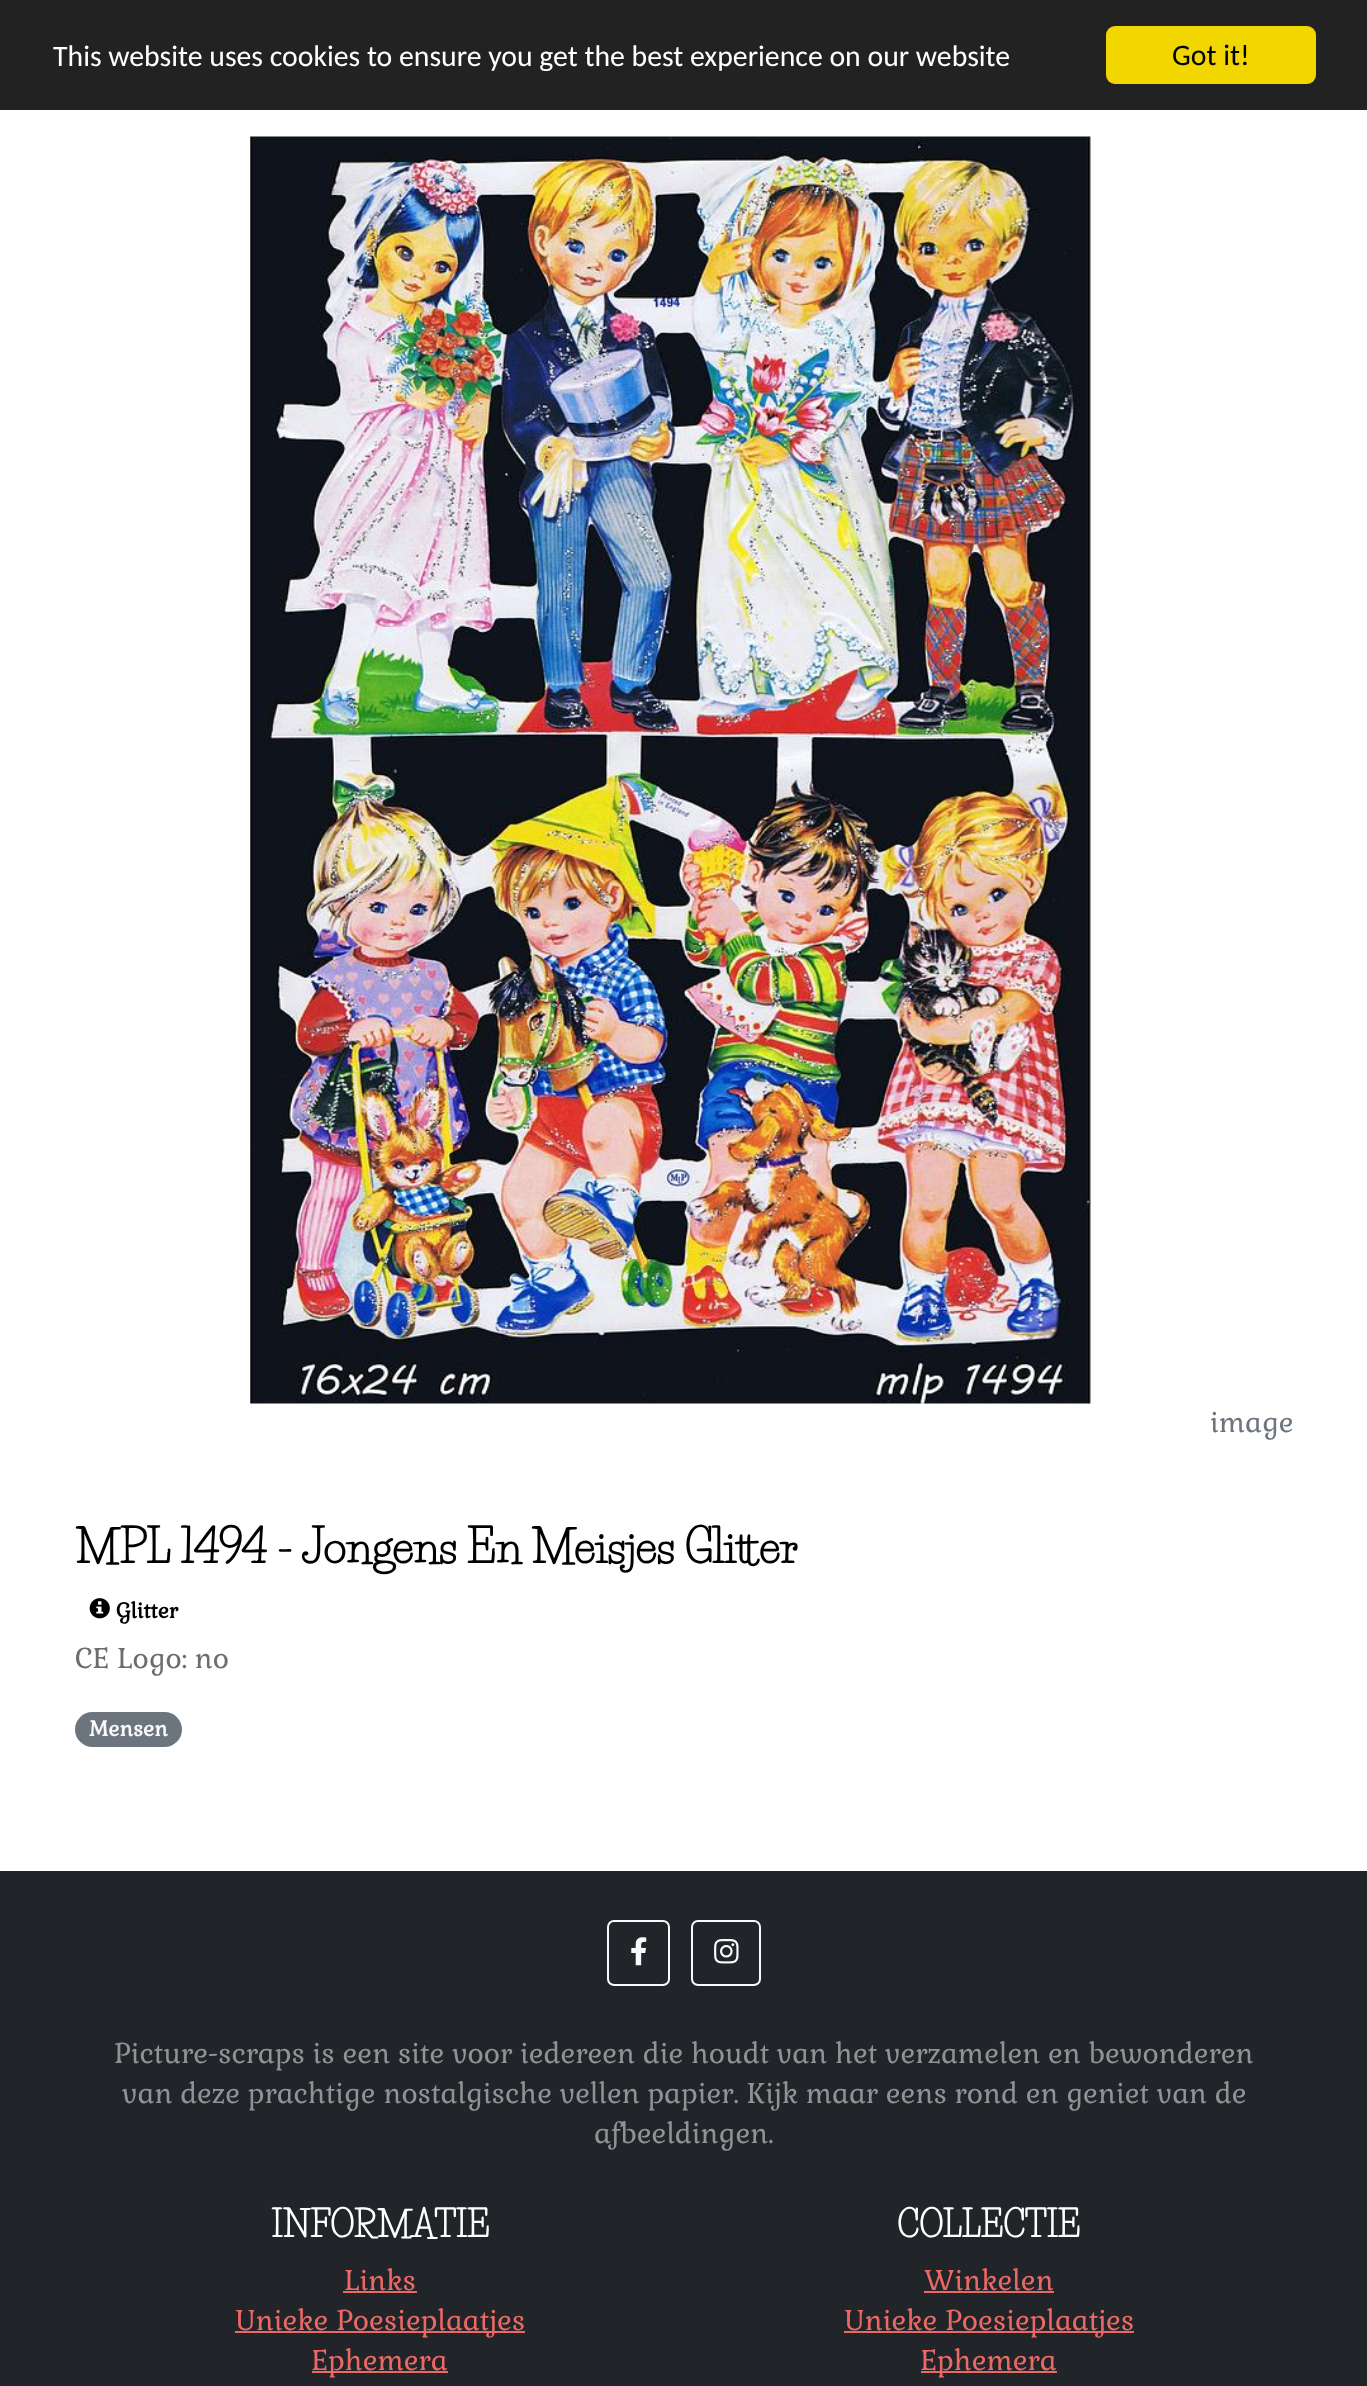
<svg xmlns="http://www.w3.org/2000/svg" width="1367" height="2386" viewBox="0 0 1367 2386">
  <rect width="100%" height="100%" fill="rgb(255,255,255)"/>
  <rect x="0" y="0" width="1367" height="110" fill="rgb(34,34,34)"/>
  <text x="53" y="66" font-family="Carlito" font-size="29.75" fill="rgb(255,255,255)">This website uses cookies to ensure you get the best experience on our website</text>
  <rect x="1106" y="26" width="210" height="58" rx="9" fill="rgb(241,214,0)"/>
  <text x="1172" y="65" font-family="Carlito" font-size="29.75" fill="rgb(0,0,0)">Got it!</text>
  <image x="250" y="136" width="842" height="1268" href="pic1.png"/>
  <text x="1210" y="1432" font-family="Gabriela" font-size="28" fill="rgb(108,117,125)">image</text>
  <g font-family="Life Savers" font-size="44.6" font-weight="bold" fill="rgb(0,0,0)">
    <text x="75" y="1563">MPL</text>
    <text x="180" y="1563">1494</text>
    <text x="276" y="1563">-</text>
    <text x="302" y="1563">Jongens En Meisjes Glitter</text>
  </g>
  <image x="89" y="1598" width="21" height="21" href="pic2.png"/>
  <text x="116" y="1618" font-family="Gabriela" font-size="21" font-weight="bold" fill="rgb(0,0,0)">Glitter</text>
  <text x="75" y="1668" font-family="Gabriela" font-size="28" fill="rgb(109,109,110)">CE Logo: no</text>
  <rect x="75" y="1712" width="107" height="35" rx="17.5" fill="rgb(108,117,125)"/>
  <text x="89" y="1736" font-family="Gabriela" font-size="21" font-weight="bold" fill="rgb(248,249,250)">Mensen</text>
  <rect x="0" y="1871" width="1367" height="515" fill="rgb(33,37,41)"/>
  <rect x="608" y="1921" width="61" height="64" rx="6" fill="none" stroke="rgb(248,249,250)" stroke-width="2"/>
  <image x="631" y="1937" width="16" height="29" href="pic3.png"/>
  <rect x="692" y="1921" width="68" height="64" rx="6" fill="none" stroke="rgb(248,249,250)" stroke-width="2"/>
  <image x="714" y="1939" width="25" height="25" href="pic4.png"/>
  <g font-family="Gabriela" font-size="28" fill="rgb(144,146,148)">
    <text x="114" y="2063">Picture-scraps is een site voor iedereen die houdt van het verzamelen en bewonderen</text>
    <text x="122" y="2103">van deze prachtige nostalgische vellen papier. Kijk maar eens rond en geniet van de</text>
    <text x="594" y="2143">afbeeldingen.</text>
  </g>
  <text x="271" y="2237" font-family="Life Savers" font-size="35" font-weight="bold" fill="rgb(255,255,255)">INFORMATIE</text>
  <text x="344" y="2290" font-family="Gabriela" font-size="28" fill="rgb(235,104,100)">Links</text>
  <rect x="343" y="2291" width="74" height="2" fill="rgb(235,104,100)"/>
  <rect x="235" y="2331" width="290" height="2" fill="rgb(235,104,100)"/>
  <text x="235" y="2330" font-family="Gabriela" font-size="28" fill="rgb(235,104,100)">Unieke Poesieplaatjes</text>
  <rect x="312" y="2371" width="136" height="2" fill="rgb(235,104,100)"/>
  <text x="311" y="2370" font-family="Gabriela" font-size="28" fill="rgb(235,104,100)">Ephemera</text>
  <text x="897" y="2237" font-family="Life Savers" font-size="35" font-weight="bold" fill="rgb(255,255,255)">COLLECTIE</text>
  <text x="924" y="2290" font-family="Gabriela" font-size="28" fill="rgb(235,104,100)">Winkelen</text>
  <rect x="924" y="2291" width="130" height="2" fill="rgb(235,104,100)"/>
  <rect x="844" y="2331" width="290" height="2" fill="rgb(235,104,100)"/>
  <text x="844" y="2330" font-family="Gabriela" font-size="28" fill="rgb(235,104,100)">Unieke Poesieplaatjes</text>
  <rect x="921" y="2371" width="136" height="2" fill="rgb(235,104,100)"/>
  <text x="920" y="2370" font-family="Gabriela" font-size="28" fill="rgb(235,104,100)">Ephemera</text>
</svg>
